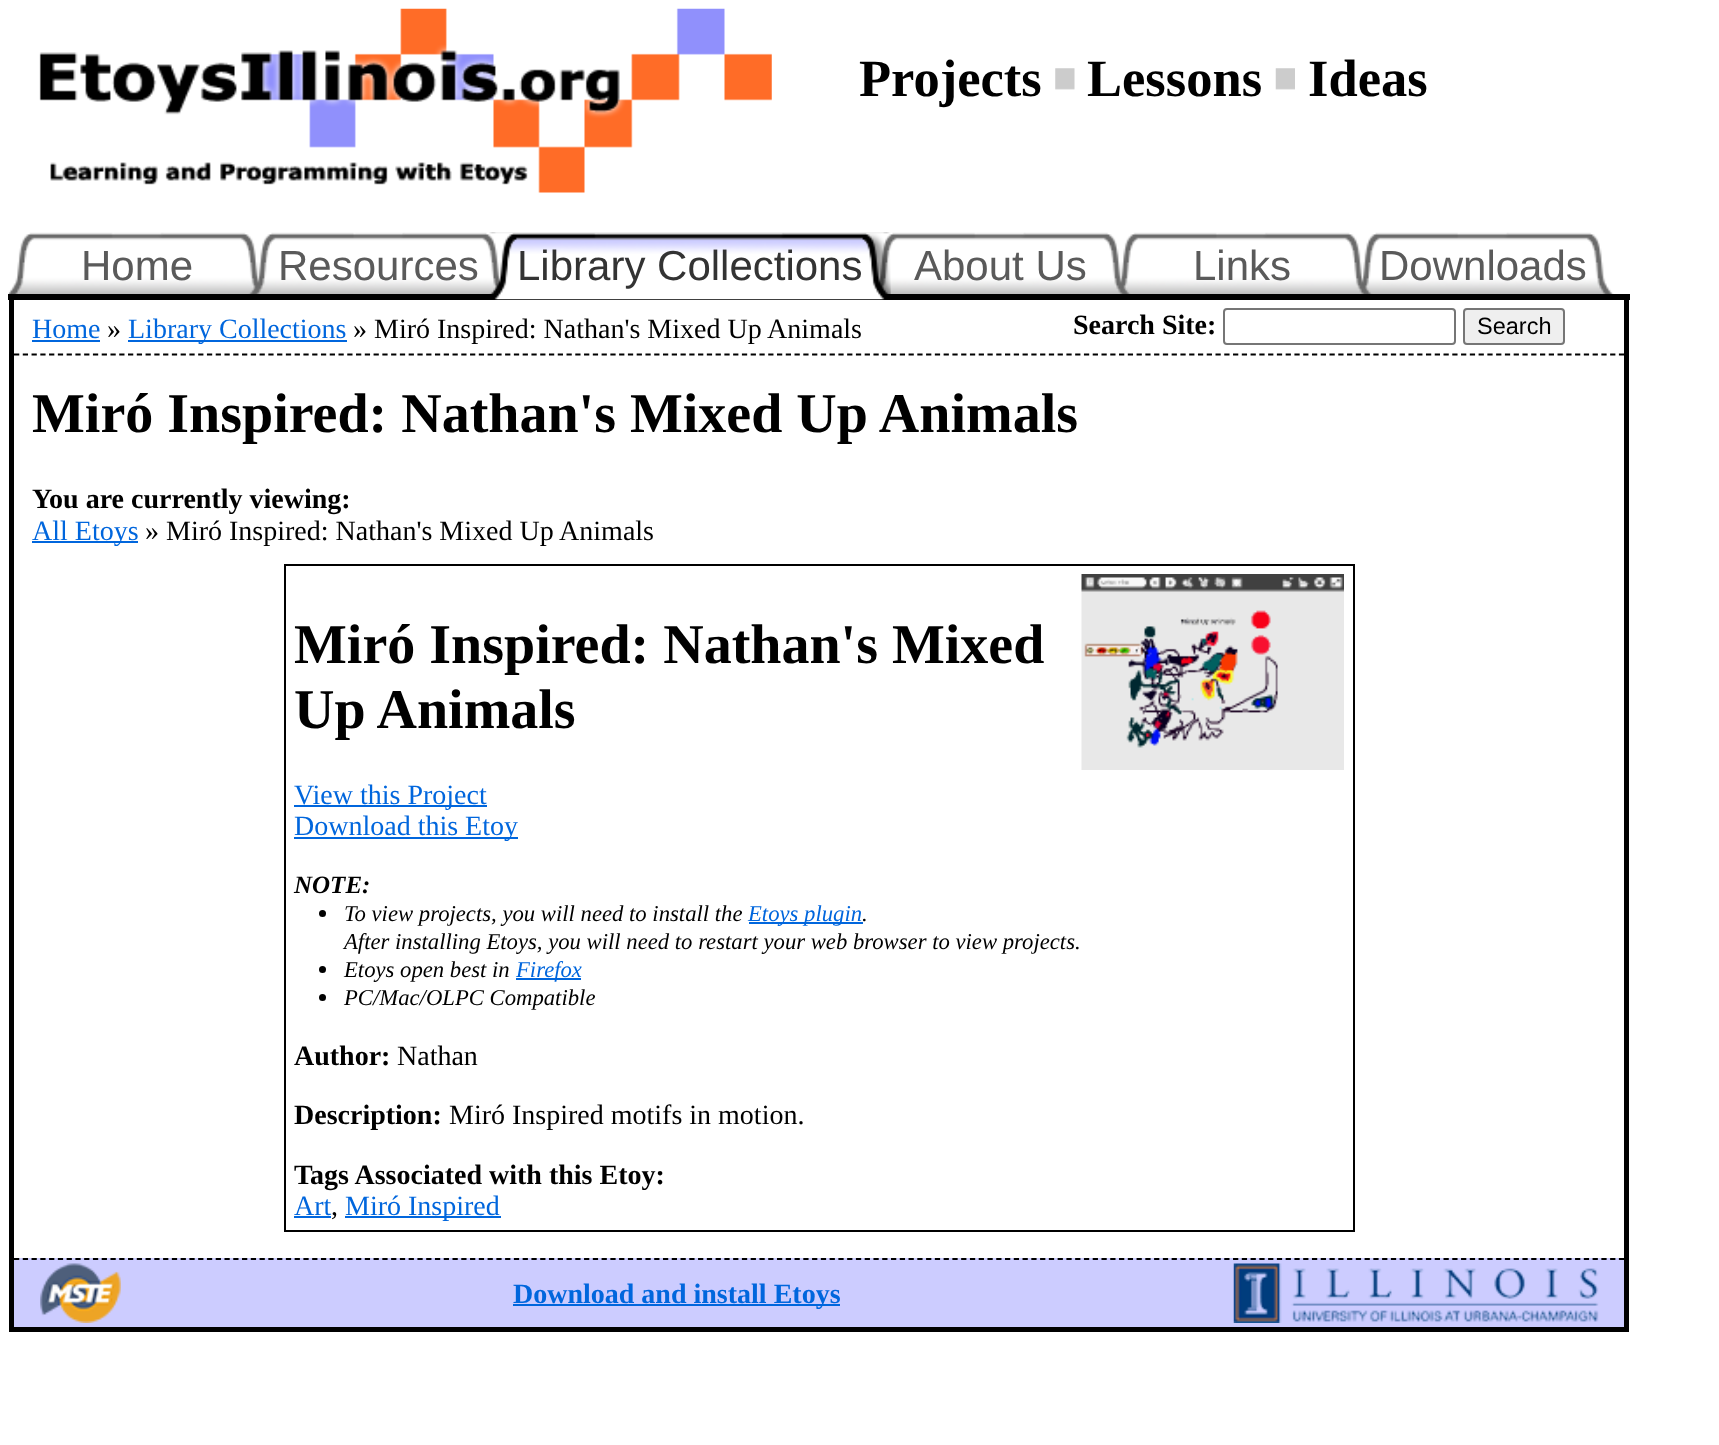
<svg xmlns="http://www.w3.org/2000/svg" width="1719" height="1445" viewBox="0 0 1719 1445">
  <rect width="100%" height="100%" fill="rgb(255,255,255)"/>
  <image x="39" y="8" width="733" height="185" href="pic1.png"/>
  <text x="859" y="96" font-family="Liberation Serif" font-size="52.5" font-weight="bold" fill="rgb(0,0,0)">Projects</text>
  <image x="1055" y="68" width="20" height="22" href="pic2.png"/>
  <text x="1087" y="96" font-family="Liberation Serif" font-size="52.5" font-weight="bold" fill="rgb(0,0,0)">Lessons</text>
  <image x="1275" y="68" width="20" height="22" href="pic3.png"/>
  <text x="1308" y="96" font-family="Liberation Serif" font-size="52.5" font-weight="bold" fill="rgb(0,0,0)">Ideas</text>
  <image x="8" y="232" width="255" height="62" href="pic4.png"/>
  <text x="81" y="280" font-family="Liberation Sans" font-size="42" fill="rgb(90,90,90)">Home</text>
  <image x="248" y="232" width="257" height="62" href="pic5.png"/>
  <text x="278" y="280" font-family="Liberation Sans" font-size="42" fill="rgb(90,90,90)">Resources</text>
  <image x="1357" y="232" width="257" height="62" href="pic9.png"/>
  <image x="1116" y="232" width="257" height="62" href="pic8.png"/>
  <image x="874" y="232" width="257" height="62" href="pic7.png"/>
  <rect x="1624" y="299" width="5" height="1033" fill="rgb(0,0,0)"/>
  <rect x="9" y="1327" width="1620" height="5" fill="rgb(0,0,0)"/>
  <rect x="9" y="299" width="5" height="1033" fill="rgb(0,0,0)"/>
  <rect x="8" y="294" width="1622" height="6" fill="rgb(0,0,0)"/>
  <image x="489" y="232" width="402" height="68" href="pic6.png"/>
  <text x="517" y="280" font-family="Liberation Sans" font-size="42" fill="rgb(51,51,51)">Library Collections</text>
  <g font-family="Liberation Sans" font-size="42" fill="rgb(90,90,90)">
    <text x="914" y="280">About Us</text>
    <text x="1193" y="280">Links</text>
    <text x="1379" y="280">Downloads</text>
  </g>
  <path d="M14 354.5H1624" fill="none" stroke="rgb(0,0,0)" stroke-width="1.8" stroke-dasharray="5.25 3.52"/>
  <text x="32" y="338" font-family="Liberation Serif" font-size="28" fill="rgb(0,102,221)">Home</text>
  <rect x="32" y="340" width="68" height="2" fill="rgb(0,102,221)"/>
  <text x="107" y="338" font-family="Liberation Serif" font-size="28" fill="rgb(0,0,0)">»</text>
  <rect x="128" y="340" width="219" height="2" fill="rgb(0,102,221)"/>
  <text x="128" y="338" font-family="Liberation Serif" font-size="28" fill="rgb(0,102,221)">Library Collections</text>
  <text x="353" y="338" font-family="Liberation Serif" font-size="28" fill="rgb(0,0,0)">» Miró Inspired: Nathan's Mixed Up Animals</text>
  <text x="1073" y="334" font-family="Liberation Serif" font-size="28" font-weight="bold" fill="rgb(0,0,0)">Search Site:</text>
  <rect x="1224" y="309" width="231" height="35" rx="3" fill="none" stroke="rgb(118,118,118)" stroke-width="2"/>
  <rect x="1464" y="309" width="100" height="35" rx="3" fill="rgb(239,239,239)" stroke="rgb(118,118,118)" stroke-width="2"/>
  <text x="1477" y="334" font-family="Liberation Sans" font-size="23.5" fill="rgb(0,0,0)">Search</text>
  <text x="32" y="432" font-family="Liberation Serif" font-size="56" font-weight="bold" fill="rgb(0,0,0)">Miró Inspired: Nathan's Mixed Up Animals</text>
  <text x="32" y="508" font-family="Liberation Serif" font-size="28" font-weight="bold" fill="rgb(0,0,0)">You are currently viewing:</text>
  <rect x="32" y="541" width="106" height="2" fill="rgb(0,102,221)"/>
  <text x="32" y="540" font-family="Liberation Serif" font-size="28" fill="rgb(0,102,221)">All Etoys</text>
  <text x="145" y="540" font-family="Liberation Serif" font-size="28" fill="rgb(0,0,0)">» Miró Inspired: Nathan's Mixed Up Animals</text>
  <rect x="285" y="565" width="1069" height="666" fill="none" stroke="rgb(0,0,0)" stroke-width="2"/>
  <g font-family="Liberation Serif" font-size="56" font-weight="bold" fill="rgb(0,0,0)">
    <text>
      <tspan x="294" y="663">Miró Inspired: Nathan's Mixed</tspan>
      <tspan x="294" y="728">Up Animals</tspan>
    </text>
  </g>
  <image x="1081" y="574" width="263" height="196" href="pic10.png"/>
  <rect x="294" y="805" width="193" height="2" fill="rgb(0,102,221)"/>
  <text x="294" y="804" font-family="Liberation Serif" font-size="28" fill="rgb(0,102,221)">View this Project</text>
  <rect x="294" y="837" width="224" height="2" fill="rgb(0,102,221)"/>
  <text x="294" y="835" font-family="Liberation Serif" font-size="28" fill="rgb(0,102,221)">Download this Etoy</text>
  <text x="294" y="893" font-family="Liberation Serif" font-size="25" font-weight="bold" font-style="italic" fill="rgb(0,0,0)">NOTE:</text>
  <circle cx="322.5" cy="913.5" r="3.5" fill="rgb(0,0,0)"/>
  <text x="344" y="921" font-family="Liberation Serif" font-size="22.7" font-style="italic" fill="rgb(0,0,0)">To view projects, you will need to install the</text>
  <rect x="749" y="922" width="114" height="2" fill="rgb(0,102,221)"/>
  <text x="748" y="921" font-family="Liberation Serif" font-size="22.7" font-style="italic" fill="rgb(0,102,221)">Etoys plugin</text>
  <g font-family="Liberation Serif" font-size="22.7" font-style="italic" fill="rgb(0,0,0)">
    <text x="862" y="921">.</text>
    <text x="344" y="949">After installing Etoys, you will need to restart your web browser to view projects.</text>
  </g>
  <circle cx="322.5" cy="969.5" r="3.5" fill="rgb(0,0,0)"/>
  <text x="344" y="977" font-family="Liberation Serif" font-size="22.7" font-style="italic" fill="rgb(0,0,0)">Etoys open best in</text>
  <rect x="516" y="978" width="65" height="2" fill="rgb(0,102,221)"/>
  <text x="516" y="977" font-family="Liberation Serif" font-size="22.7" font-style="italic" fill="rgb(0,102,221)">Firefox</text>
  <circle cx="322.5" cy="997.5" r="3.5" fill="rgb(0,0,0)"/>
  <text x="344" y="1005" font-family="Liberation Serif" font-size="22.7" font-style="italic" fill="rgb(0,0,0)">PC/Mac/OLPC Compatible</text>
  <text x="294" y="1065" font-family="Liberation Serif" font-size="28" font-weight="bold" fill="rgb(0,0,0)">Author:</text>
  <text x="397" y="1065" font-family="Liberation Serif" font-size="28" fill="rgb(0,0,0)">Nathan</text>
  <text x="294" y="1124" font-family="Liberation Serif" font-size="28" font-weight="bold" fill="rgb(0,0,0)">Description:</text>
  <text x="449" y="1124" font-family="Liberation Serif" font-size="28" fill="rgb(0,0,0)">Miró Inspired motifs in motion.</text>
  <text x="294" y="1184" font-family="Liberation Serif" font-size="28" font-weight="bold" fill="rgb(0,0,0)">Tags Associated with this Etoy:</text>
  <text x="294" y="1215" font-family="Liberation Serif" font-size="28" fill="rgb(0,102,221)">Art</text>
  <text x="331" y="1215" font-family="Liberation Serif" font-size="28" fill="rgb(0,0,0)">,</text>
  <rect x="294" y="1216" width="37" height="2" fill="rgb(0,102,221)"/>
  <rect x="345" y="1216" width="156" height="2" fill="rgb(0,102,221)"/>
  <text x="345" y="1215" font-family="Liberation Serif" font-size="28" fill="rgb(0,102,221)">Miró Inspired</text>
  <rect x="14" y="1258" width="1610" height="69" fill="rgb(204,204,255)"/>
  <path d="M14 1259H1624" fill="none" stroke="rgb(0,0,0)" stroke-width="1.8" stroke-dasharray="5.25 3.52"/>
  <image x="40" y="1263" width="81" height="60" href="pic11.png"/>
  <rect x="513" y="1304" width="327" height="2" fill="rgb(0,102,221)"/>
  <text x="513" y="1303" font-family="Liberation Serif" font-size="28" font-weight="bold" fill="rgb(0,102,221)">Download and install Etoys</text>
  <image x="1233" y="1263" width="366" height="60" href="pic12.png"/>
</svg>
